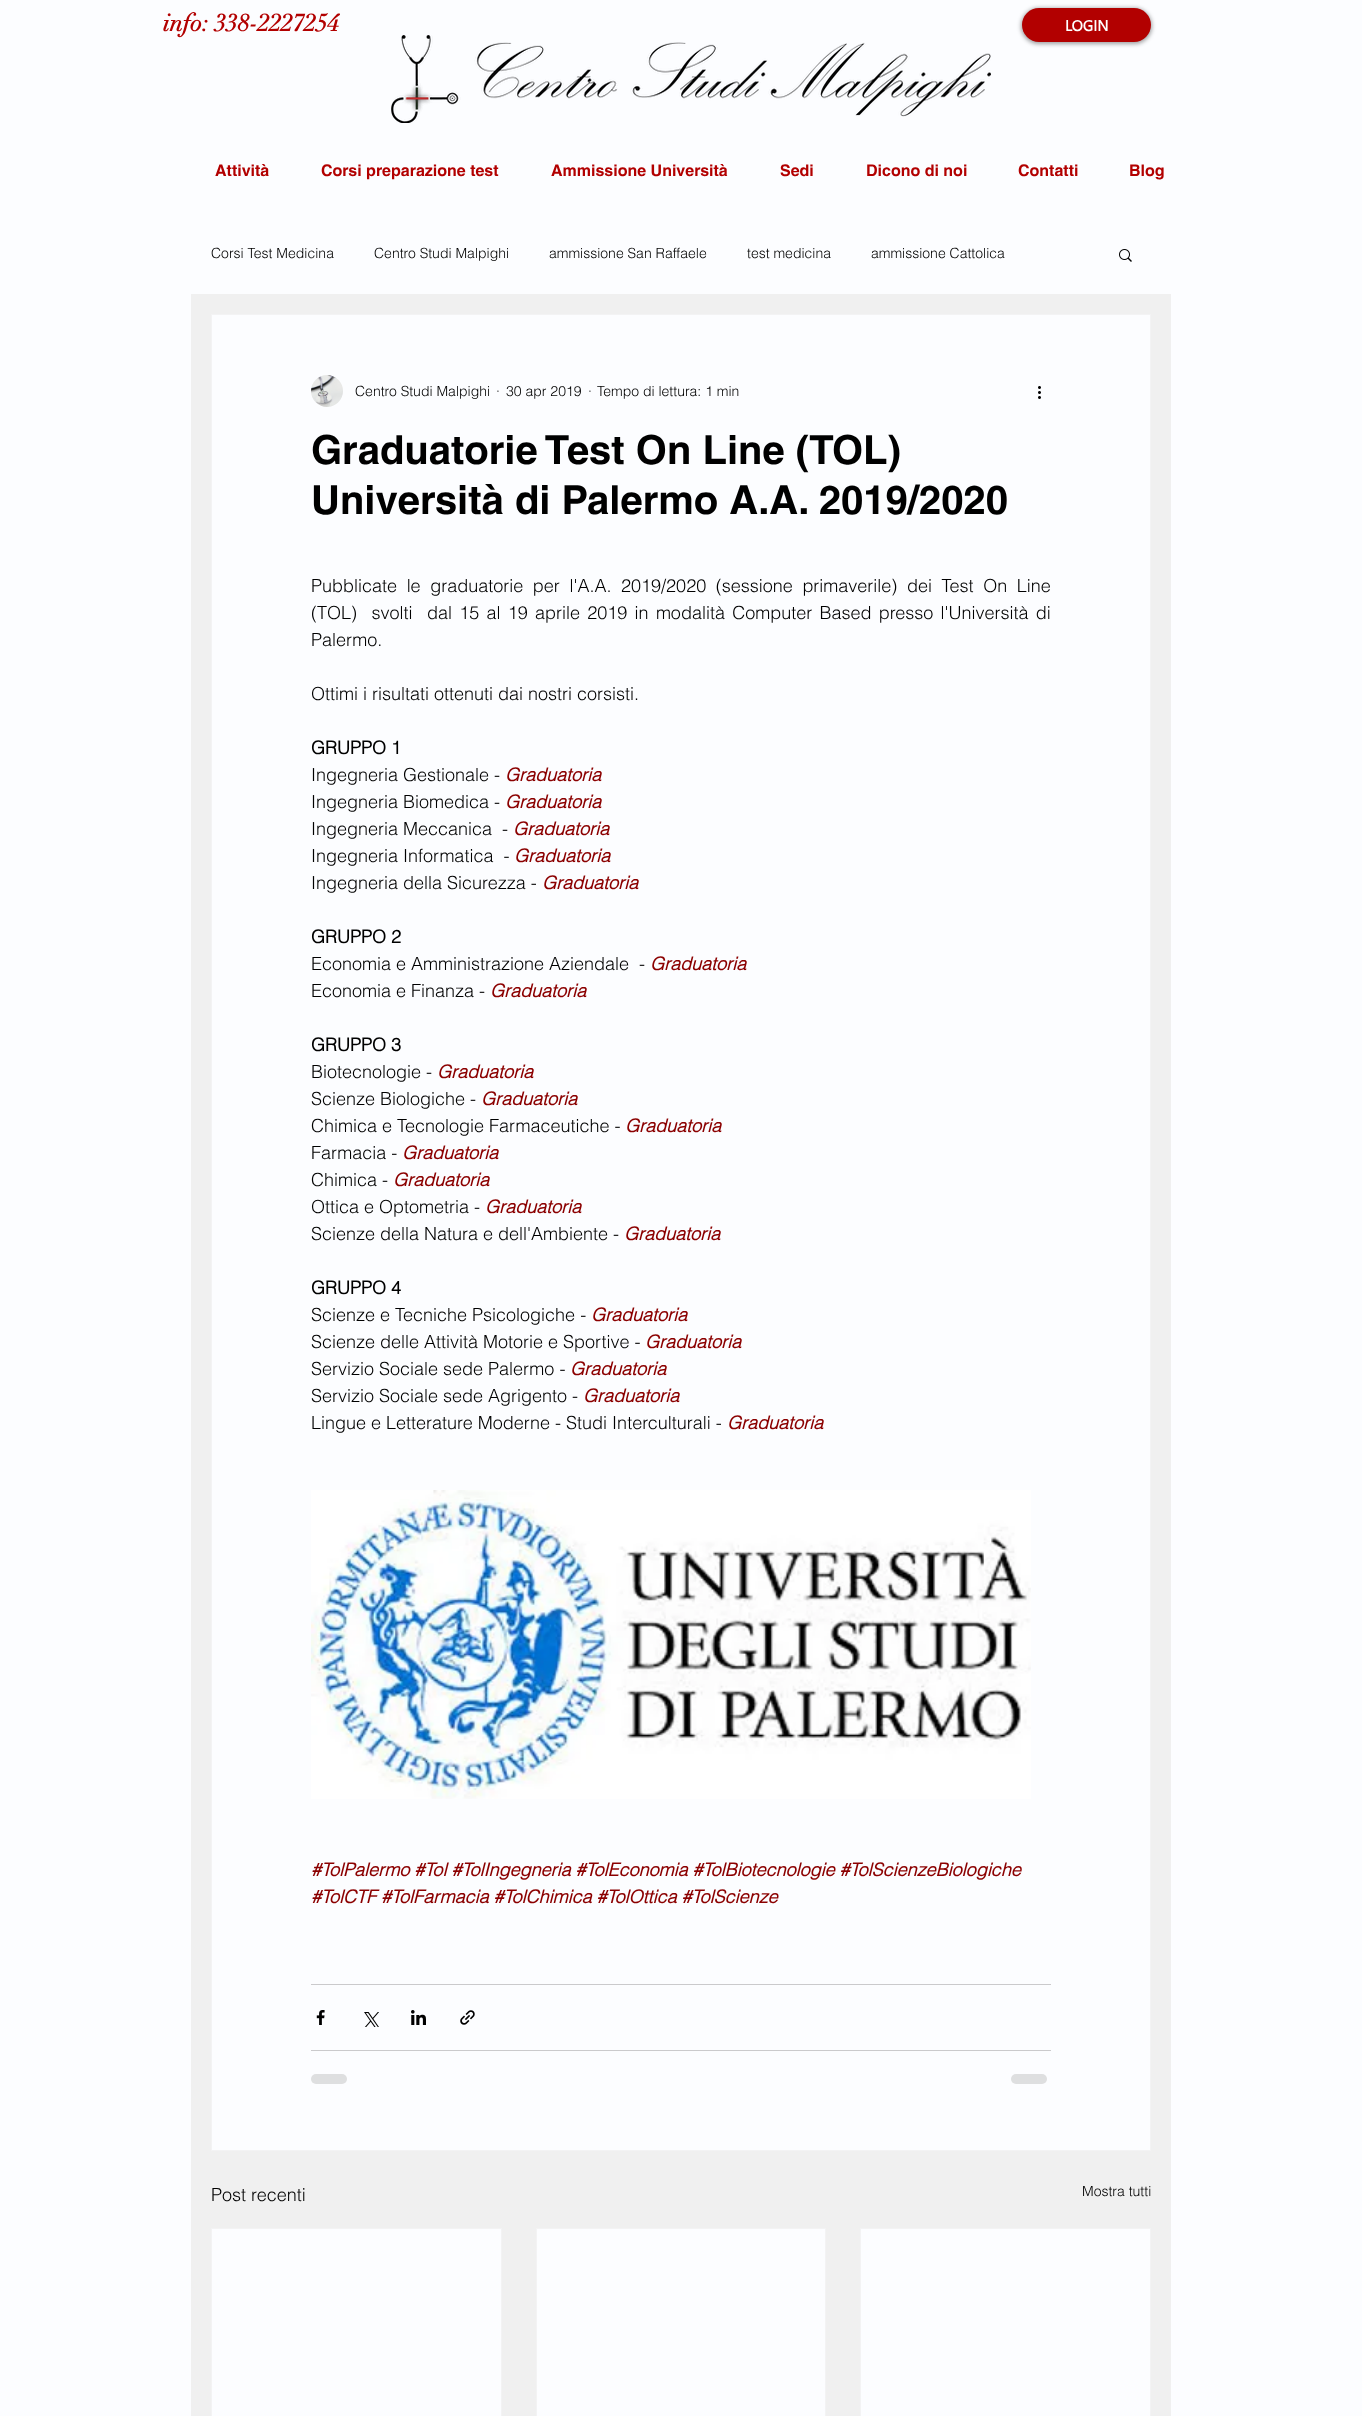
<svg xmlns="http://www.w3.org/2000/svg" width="1362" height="2416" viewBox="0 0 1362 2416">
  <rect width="100%" height="100%" fill="rgb(252,253,255)"/>
  <text x="163" y="31" font-family="didot" font-size="24" font-weight="bold" fill="rgb(178,0,0)">info: 338-2227254</text>
  <rect x="1021" y="8" width="131" height="36" rx="18" fill="rgba(0,0,0,0.37)" filter="blur(2px)"/>
  <rect x="1022" y="8" width="129" height="34" rx="17" fill="rgb(178,0,0)"/>
  <text x="1065" y="31" font-family="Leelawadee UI" font-size="15" font-weight="bold" fill="rgb(255,255,255)">LOGIN</text>
  <image x="391" y="35" width="600" height="88" href="pic1.png"/>
  <g font-family="helvetica" font-size="16" font-weight="bold" fill="rgb(178,0,0)">
    <text x="215" y="176">Attività</text>
    <text x="321" y="176">Corsi preparazione test</text>
    <text x="551" y="176">Ammissione Università</text>
    <text x="780" y="176">Sedi</text>
    <text x="866" y="176">Dicono di noi</text>
    <text x="1018" y="176">Contatti</text>
    <text x="1129" y="176">Blog</text>
  </g>
  <rect x="191" y="294" width="980" height="2122" fill="rgb(240,240,240)"/>
  <g font-family="helvetica" font-size="14" font-weight="300" fill="rgb(0,0,0)">
    <text x="211" y="258">Corsi Test Medicina</text>
    <text x="374" y="258">Centro Studi Malpighi</text>
    <text x="549" y="258">ammissione San Raffaele</text>
    <text x="747" y="258">test medicina</text>
    <text x="871" y="258">ammissione Cattolica</text>
  </g>
  <image x="1119" y="249" width="13" height="13" href="pic2.png"/>
  <rect x="211.5" y="314.5" width="939" height="1836" fill="rgb(252,253,255)" stroke="rgb(243,243,244)"/>
  <image x="311" y="375" width="32" height="32" href="pic3.png"/>
  <g font-family="helvetica" font-size="14" font-weight="300" fill="rgb(0,0,0)">
    <text x="355" y="396">Centro Studi Malpighi</text>
    <text x="496" y="396">·</text>
    <text x="506" y="396">30 apr 2019</text>
    <text x="588" y="396">·</text>
    <text x="597" y="396">Tempo di lettura: 1 min</text>
  </g>
  <image x="1038" y="386" width="3" height="13" href="pic4.png"/>
  <g font-family="helvetica" font-size="40" font-weight="bold" fill="rgb(0,0,0)">
    <text>
      <tspan x="311" y="464">Graduatorie Test On Line (TOL)</tspan>
      <tspan x="311" y="514">Università di Palermo A.A. 2019/2020</tspan>
    </text>
  </g>
  <g font-family="helvetica" font-size="18" font-weight="300" fill="rgb(0,0,0)">
    <text xml:space="preserve"><tspan x="311" y="592" word-spacing="4.6">Pubblicate le graduatorie per l'A.A. 2019/2020 (sessione primaverile) dei Test On Line</tspan><tspan x="311" y="619" word-spacing="2.25">(TOL)  svolti  dal 15 al 19 aprile 2019 in modalità Computer Based presso l'Università di</tspan><tspan x="311" y="646">Palermo.</tspan></text>
    <text x="311" y="700">Ottimi i risultati ottenuti dai nostri corsisti.</text>
  </g>
  <text x="311" y="754" font-family="'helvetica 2'" font-size="18" font-weight="bold" fill="rgb(0,0,0)">GRUPPO 1</text>
  <text x="311" y="781" font-family="helvetica" font-size="18" font-weight="300" fill="rgb(0,0,0)">Ingegneria Gestionale -</text>
  <text x="505" y="781" font-family="helvetica" font-size="18" font-weight="bold" font-style="italic" fill="rgb(139,0,0)">Graduatoria</text>
  <text x="311" y="808" font-family="helvetica" font-size="18" font-weight="300" fill="rgb(0,0,0)">Ingegneria Biomedica -</text>
  <text x="505" y="808" font-family="helvetica" font-size="18" font-weight="bold" font-style="italic" fill="rgb(139,0,0)">Graduatoria</text>
  <text x="311" y="835" font-family="helvetica" font-size="18" font-weight="300" fill="rgb(0,0,0)" xml:space="preserve">Ingegneria Meccanica  -</text>
  <text x="513" y="835" font-family="helvetica" font-size="18" font-weight="bold" font-style="italic" fill="rgb(139,0,0)">Graduatoria</text>
  <text x="311" y="862" font-family="helvetica" font-size="18" font-weight="300" fill="rgb(0,0,0)" xml:space="preserve">Ingegneria Informatica  -</text>
  <text x="514" y="862" font-family="helvetica" font-size="18" font-weight="bold" font-style="italic" fill="rgb(139,0,0)">Graduatoria</text>
  <text x="311" y="889" font-family="helvetica" font-size="18" font-weight="300" fill="rgb(0,0,0)">Ingegneria della Sicurezza -</text>
  <text x="542" y="889" font-family="helvetica" font-size="18" font-weight="bold" font-style="italic" fill="rgb(139,0,0)">Graduatoria</text>
  <text x="311" y="943" font-family="'helvetica 2'" font-size="18" font-weight="bold" fill="rgb(0,0,0)">GRUPPO 2</text>
  <text x="311" y="970" font-family="helvetica" font-size="18" font-weight="300" fill="rgb(0,0,0)" xml:space="preserve">Economia e Amministrazione Aziendale  -</text>
  <text x="650" y="970" font-family="helvetica" font-size="18" font-weight="bold" font-style="italic" fill="rgb(139,0,0)">Graduatoria</text>
  <text x="311" y="997" font-family="helvetica" font-size="18" font-weight="300" fill="rgb(0,0,0)">Economia e Finanza -</text>
  <text x="490" y="997" font-family="helvetica" font-size="18" font-weight="bold" font-style="italic" fill="rgb(139,0,0)">Graduatoria</text>
  <text x="311" y="1051" font-family="'helvetica 2'" font-size="18" font-weight="bold" fill="rgb(0,0,0)">GRUPPO 3</text>
  <text x="311" y="1078" font-family="helvetica" font-size="18" font-weight="300" fill="rgb(0,0,0)">Biotecnologie -</text>
  <text x="437" y="1078" font-family="helvetica" font-size="18" font-weight="bold" font-style="italic" fill="rgb(139,0,0)">Graduatoria</text>
  <text x="311" y="1105" font-family="helvetica" font-size="18" font-weight="300" fill="rgb(0,0,0)">Scienze Biologiche -</text>
  <text x="481" y="1105" font-family="helvetica" font-size="18" font-weight="bold" font-style="italic" fill="rgb(139,0,0)">Graduatoria</text>
  <text x="311" y="1132" font-family="helvetica" font-size="18" font-weight="300" fill="rgb(0,0,0)">Chimica e Tecnologie Farmaceutiche -</text>
  <text x="625" y="1132" font-family="helvetica" font-size="18" font-weight="bold" font-style="italic" fill="rgb(139,0,0)">Graduatoria</text>
  <text x="311" y="1159" font-family="helvetica" font-size="18" font-weight="300" fill="rgb(0,0,0)">Farmacia -</text>
  <text x="402" y="1159" font-family="helvetica" font-size="18" font-weight="bold" font-style="italic" fill="rgb(139,0,0)">Graduatoria</text>
  <text x="311" y="1186" font-family="helvetica" font-size="18" font-weight="300" fill="rgb(0,0,0)">Chimica -</text>
  <text x="393" y="1186" font-family="helvetica" font-size="18" font-weight="bold" font-style="italic" fill="rgb(139,0,0)">Graduatoria</text>
  <text x="311" y="1213" font-family="helvetica" font-size="18" font-weight="300" fill="rgb(0,0,0)">Ottica e Optometria -</text>
  <text x="485" y="1213" font-family="helvetica" font-size="18" font-weight="bold" font-style="italic" fill="rgb(139,0,0)">Graduatoria</text>
  <text x="311" y="1240" font-family="helvetica" font-size="18" font-weight="300" fill="rgb(0,0,0)">Scienze della Natura e dell'Ambiente -</text>
  <text x="624" y="1240" font-family="helvetica" font-size="18" font-weight="bold" font-style="italic" fill="rgb(139,0,0)">Graduatoria</text>
  <text x="311" y="1294" font-family="'helvetica 2'" font-size="18" font-weight="bold" fill="rgb(0,0,0)">GRUPPO 4</text>
  <text x="311" y="1321" font-family="helvetica" font-size="18" font-weight="300" fill="rgb(0,0,0)">Scienze e Tecniche Psicologiche -</text>
  <text x="591" y="1321" font-family="helvetica" font-size="18" font-weight="bold" font-style="italic" fill="rgb(139,0,0)">Graduatoria</text>
  <text x="311" y="1348" font-family="helvetica" font-size="18" font-weight="300" fill="rgb(0,0,0)">Scienze delle Attività Motorie e Sportive -</text>
  <text x="645" y="1348" font-family="helvetica" font-size="18" font-weight="bold" font-style="italic" fill="rgb(139,0,0)">Graduatoria</text>
  <text x="311" y="1375" font-family="helvetica" font-size="18" font-weight="300" fill="rgb(0,0,0)">Servizio Sociale sede Palermo -</text>
  <text x="570" y="1375" font-family="helvetica" font-size="18" font-weight="bold" font-style="italic" fill="rgb(139,0,0)">Graduatoria</text>
  <text x="311" y="1402" font-family="helvetica" font-size="18" font-weight="300" fill="rgb(0,0,0)">Servizio Sociale sede Agrigento -</text>
  <text x="583" y="1402" font-family="helvetica" font-size="18" font-weight="bold" font-style="italic" fill="rgb(139,0,0)">Graduatoria</text>
  <text x="311" y="1429" font-family="helvetica" font-size="18" font-weight="300" fill="rgb(0,0,0)">Lingue e Letterature Moderne - Studi Interculturali -</text>
  <text x="727" y="1429" font-family="helvetica" font-size="18" font-weight="bold" font-style="italic" fill="rgb(139,0,0)">Graduatoria</text>
  <image x="311" y="1490" width="720" height="309" href="pic5.png"/>
  <g font-family="helvetica" font-size="18" font-weight="bold" font-style="italic" fill="rgb(139,0,0)">
    <text>
      <tspan x="311" y="1876">#TolPalermo #Tol #TolIngegneria #TolEconomia #TolBiotecnologie #TolScienzeBiologiche</tspan>
      <tspan x="311" y="1903">#TolCTF #TolFarmacia #TolChimica #TolOttica #TolScienze</tspan>
    </text>
  </g>
  <rect x="311" y="1984" width="740" height="1" fill="rgb(202,202,204)"/>
  <image x="316" y="2010" width="9" height="15" href="pic6.png"/>
  <image x="364" y="2012" width="15" height="15" href="pic7.png"/>
  <image x="411" y="2010" width="15" height="15" href="pic8.png"/>
  <image x="460" y="2010" width="15" height="15" href="pic9.png"/>
  <rect x="311" y="2050" width="740" height="1" fill="rgb(202,202,204)"/>
  <rect x="311" y="2074" width="36" height="10" rx="5" fill="rgb(222,223,224)"/>
  <rect x="1011" y="2074" width="36" height="10" rx="5" fill="rgb(222,223,224)"/>
  <text x="211" y="2201" font-family="helvetica" font-size="18" font-weight="300" fill="rgb(0,0,0)">Post recenti</text>
  <text x="1082" y="2196" font-family="helvetica" font-size="14" font-weight="300" fill="rgb(0,0,0)">Mostra tutti</text>
  <rect x="211.5" y="2228.5" width="290" height="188" fill="rgb(252,253,255)" stroke="rgb(243,243,244)"/>
  <rect x="536.5" y="2228.5" width="289" height="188" fill="rgb(252,253,255)" stroke="rgb(243,243,244)"/>
  <rect x="860.5" y="2228.5" width="290" height="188" fill="rgb(252,253,255)" stroke="rgb(243,243,244)"/>
</svg>
